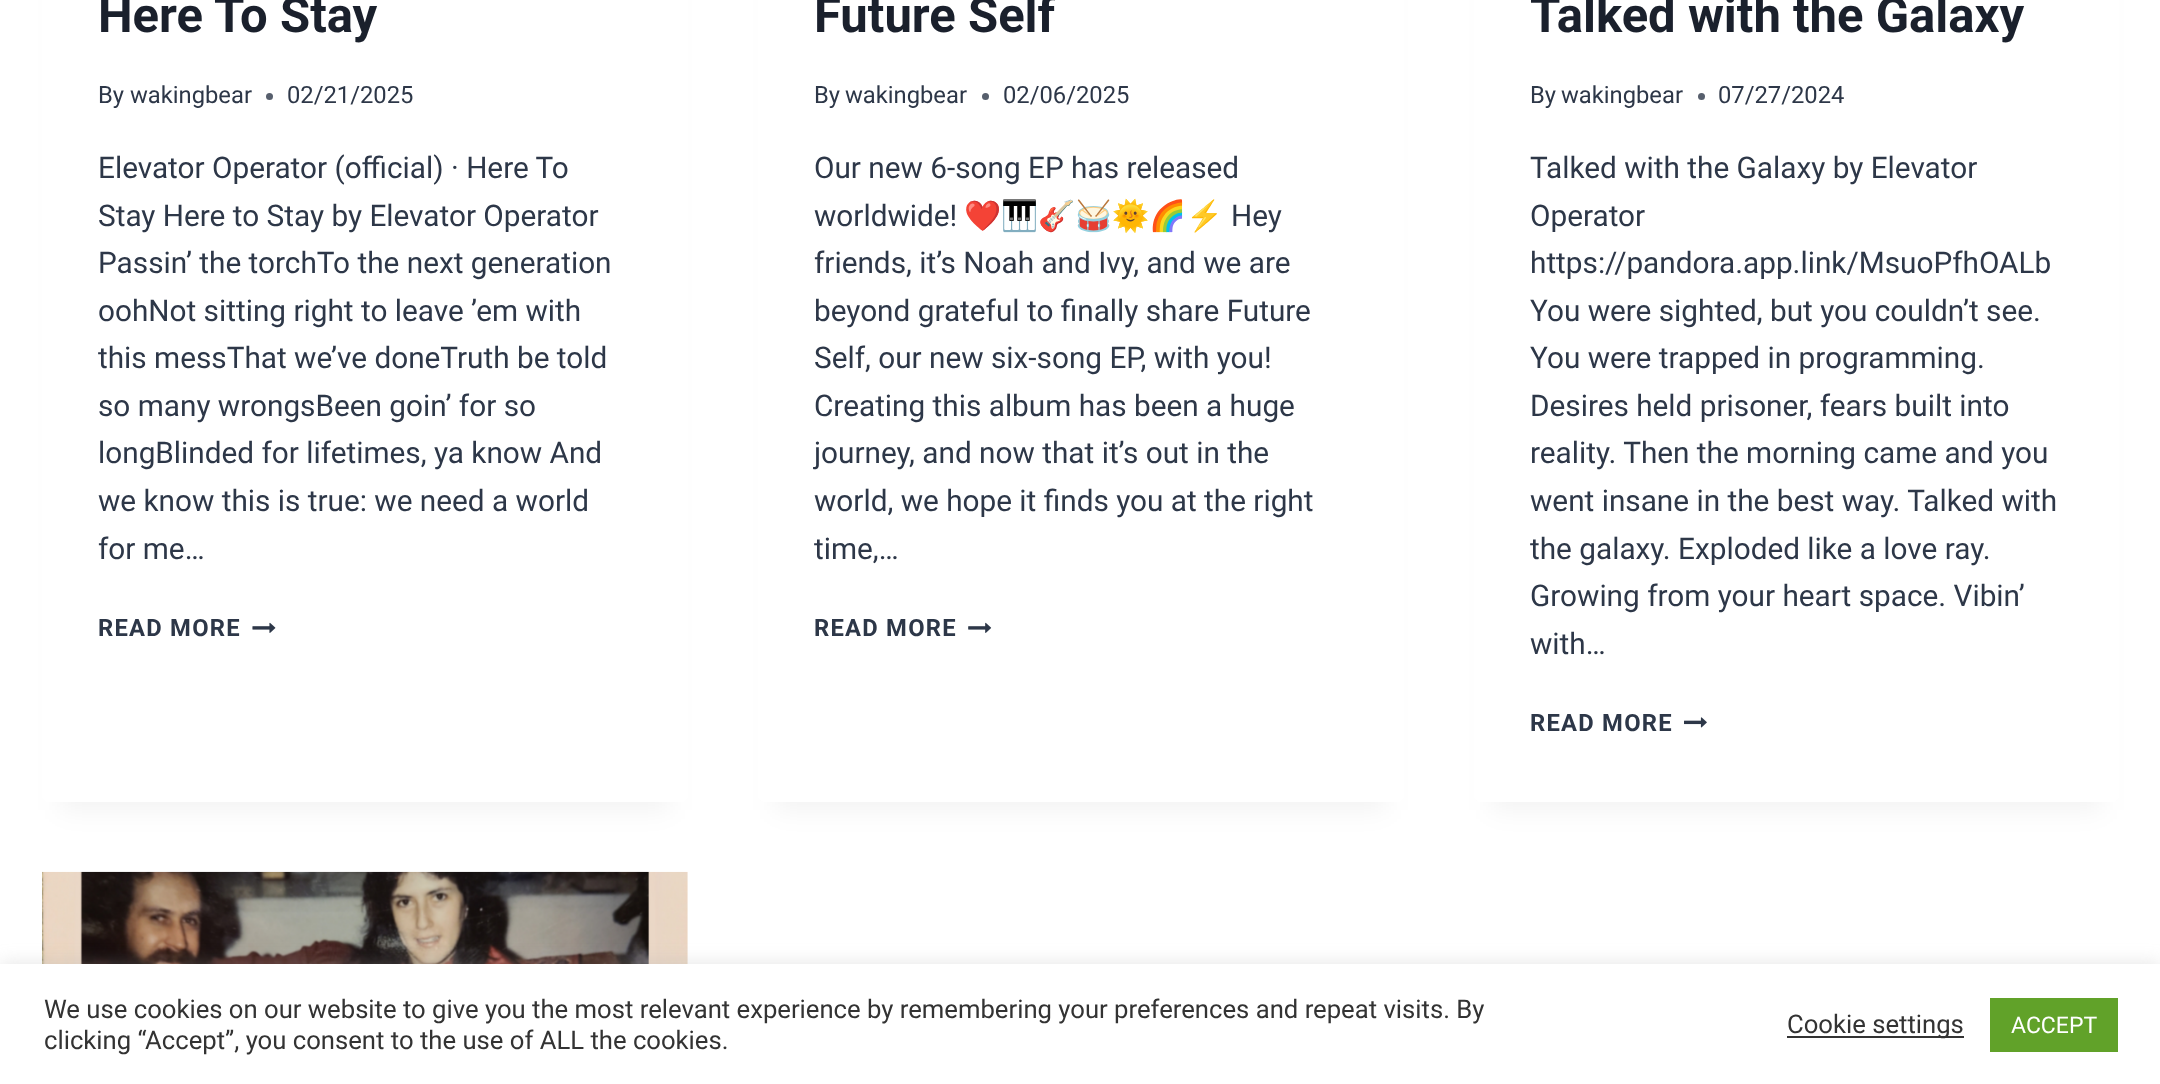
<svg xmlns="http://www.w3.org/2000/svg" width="2160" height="1084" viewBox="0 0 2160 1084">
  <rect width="100%" height="100%" fill="rgb(255,255,255)"/>
  <rect x="60" y="-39" width="610" height="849" fill="rgba(0,0,0,0.05)" filter="blur(13px)"/>
  <rect x="42" y="-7" width="646" height="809" rx="7" fill="rgb(255,255,255)"/>
  <text x="98" y="32" font-family="Roboto" font-size="49" font-weight="bold" fill="rgb(26,32,44)">Here To Stay</text>
  <g font-family="Roboto" font-size="23.75" fill="rgb(45,55,72)">
    <text x="98" y="103">By</text>
    <text x="130" y="103">wakingbear</text>
  </g>
  <circle cx="269.5" cy="96.5" r="3.5" fill="rgb(87,95,109)"/>
  <text x="287" y="103" font-family="Roboto" font-size="23.75" fill="rgb(45,55,72)">02/21/2025</text>
  <g font-family="Roboto" font-size="29.75" fill="rgb(45,55,72)">
    <text>
      <tspan x="98" y="178">Elevator Operator (official) · Here To</tspan>
      <tspan x="98" y="226">Stay Here to Stay by Elevator Operator</tspan>
      <tspan x="98" y="273">Passin’ the torchTo the next generation</tspan>
      <tspan x="98" y="321">oohNot sitting right to leave ’em with</tspan>
      <tspan x="98" y="368">this messThat we’ve doneTruth be told</tspan>
      <tspan x="98" y="416">so many wrongsBeen goin’ for so</tspan>
      <tspan x="98" y="463">longBlinded for lifetimes, ya know And</tspan>
      <tspan x="98" y="511">we know this is true: we need a world</tspan>
      <tspan x="98" y="559">for me…</tspan>
    </text>
  </g>
  <text x="98" y="636" font-family="Roboto" font-size="23.75" font-weight="bold" letter-spacing="1.25" fill="rgb(45,55,72)">READ MORE</text>
  <image x="252" y="622" width="24" height="11" href="pic1.png"/>
  <rect x="775" y="-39" width="611" height="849" fill="rgba(0,0,0,0.05)" filter="blur(13px)"/>
  <rect x="758" y="-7" width="646" height="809" rx="7" fill="rgb(255,255,255)"/>
  <text x="814" y="32" font-family="Roboto" font-size="49" font-weight="bold" fill="rgb(26,32,44)">Future Self</text>
  <g font-family="Roboto" font-size="23.75" fill="rgb(45,55,72)">
    <text x="814" y="103">By</text>
    <text x="845" y="103">wakingbear</text>
  </g>
  <circle cx="985.5" cy="96.5" r="3.5" fill="rgb(87,95,109)"/>
  <text x="1003" y="103" font-family="Roboto" font-size="23.75" fill="rgb(45,55,72)">02/06/2025</text>
  <g font-family="Roboto" font-size="29.75" fill="rgb(45,55,72)">
    <text>
      <tspan x="814" y="178">Our new 6-song EP has released</tspan>
      <tspan x="814" y="226">worldwide!</tspan>
    </text>
  </g>
  <text x="964" y="226" font-family="Noto Color Emoji" font-size="29.75" fill="rgb(45,55,72)">❤️🎹🎸🥁🌞🌈⚡</text>
  <g font-family="Roboto" font-size="29.75" fill="rgb(45,55,72)">
    <text x="1231" y="226">Hey</text>
    <text>
      <tspan x="814" y="273">friends, it’s Noah and Ivy, and we are</tspan>
      <tspan x="814" y="321">beyond grateful to finally share Future</tspan>
      <tspan x="814" y="368">Self, our new six-song EP, with you!</tspan>
      <tspan x="814" y="416">Creating this album has been a huge</tspan>
      <tspan x="814" y="463">journey, and now that it’s out in the</tspan>
      <tspan x="814" y="511">world, we hope it finds you at the right</tspan>
      <tspan x="814" y="559">time,…</tspan>
    </text>
  </g>
  <text x="814" y="636" font-family="Roboto" font-size="23.75" font-weight="bold" letter-spacing="1.25" fill="rgb(45,55,72)">READ MORE</text>
  <image x="968" y="622" width="24" height="11" href="pic2.png"/>
  <rect x="1491" y="-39" width="611" height="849" fill="rgba(0,0,0,0.05)" filter="blur(13px)"/>
  <rect x="1474" y="-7" width="645" height="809" rx="7" fill="rgb(255,255,255)"/>
  <text x="1530" y="32" font-family="Roboto" font-size="49" font-weight="bold" fill="rgb(26,32,44)">Talked with the Galaxy</text>
  <g font-family="Roboto" font-size="23.75" fill="rgb(45,55,72)">
    <text x="1530" y="103">By</text>
    <text x="1561" y="103">wakingbear</text>
  </g>
  <circle cx="1701.5" cy="96.5" r="3.5" fill="rgb(87,95,109)"/>
  <text x="1718" y="103" font-family="Roboto" font-size="23.75" fill="rgb(45,55,72)">07/27/2024</text>
  <g font-family="Roboto" font-size="29.75" fill="rgb(45,55,72)">
    <text>
      <tspan x="1530" y="178">Talked with the Galaxy by Elevator</tspan>
      <tspan x="1530" y="226">Operator</tspan>
      <tspan x="1530" y="273">https://pandora.app.link/MsuoPfhOALb</tspan>
      <tspan x="1530" y="321">You were sighted, but you couldn’t see.</tspan>
      <tspan x="1530" y="368">You were trapped in programming.</tspan>
      <tspan x="1530" y="416">Desires held prisoner, fears built into</tspan>
      <tspan x="1530" y="463">reality. Then the morning came and you</tspan>
      <tspan x="1530" y="511">went insane in the best way. Talked with</tspan>
      <tspan x="1530" y="559">the galaxy. Exploded like a love ray.</tspan>
      <tspan x="1530" y="606">Growing from your heart space. Vibin’</tspan>
      <tspan x="1530" y="654">with…</tspan>
    </text>
  </g>
  <text x="1530" y="731" font-family="Roboto" font-size="23.75" font-weight="bold" letter-spacing="1.25" fill="rgb(45,55,72)">READ MORE</text>
  <image x="1684" y="717" width="23" height="11" href="pic3.png"/>
  <image x="42" y="871" width="646" height="93" href="pic4.png"/>
  <rect x="0" y="963" width="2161" height="120" fill="rgba(172,171,171,0.3)" filter="blur(9px)"/>
  <rect x="0" y="964" width="2160" height="120" fill="rgb(255,255,255)"/>
  <g font-family="Roboto" font-size="25.67" fill="rgb(51,51,51)">
    <text>
      <tspan x="44" y="1018">We use cookies on our website to give you the most relevant experience by remembering your preferences and repeat visits. By</tspan>
      <tspan x="44" y="1049">clicking “Accept”, you consent to the use of ALL the cookies.</tspan>
    </text>
  </g>
  <rect x="1787" y="1036" width="177" height="2" fill="rgb(51,51,51)"/>
  <text x="1787" y="1033" font-family="Roboto" font-size="25.67" fill="rgb(51,51,51)">Cookie settings</text>
  <rect x="1990" y="998" width="128" height="54" fill="rgb(97,162,41)"/>
  <text x="2011" y="1033" font-family="Roboto" font-size="23" fill="rgb(255,255,255)">ACCEPT</text>
</svg>
